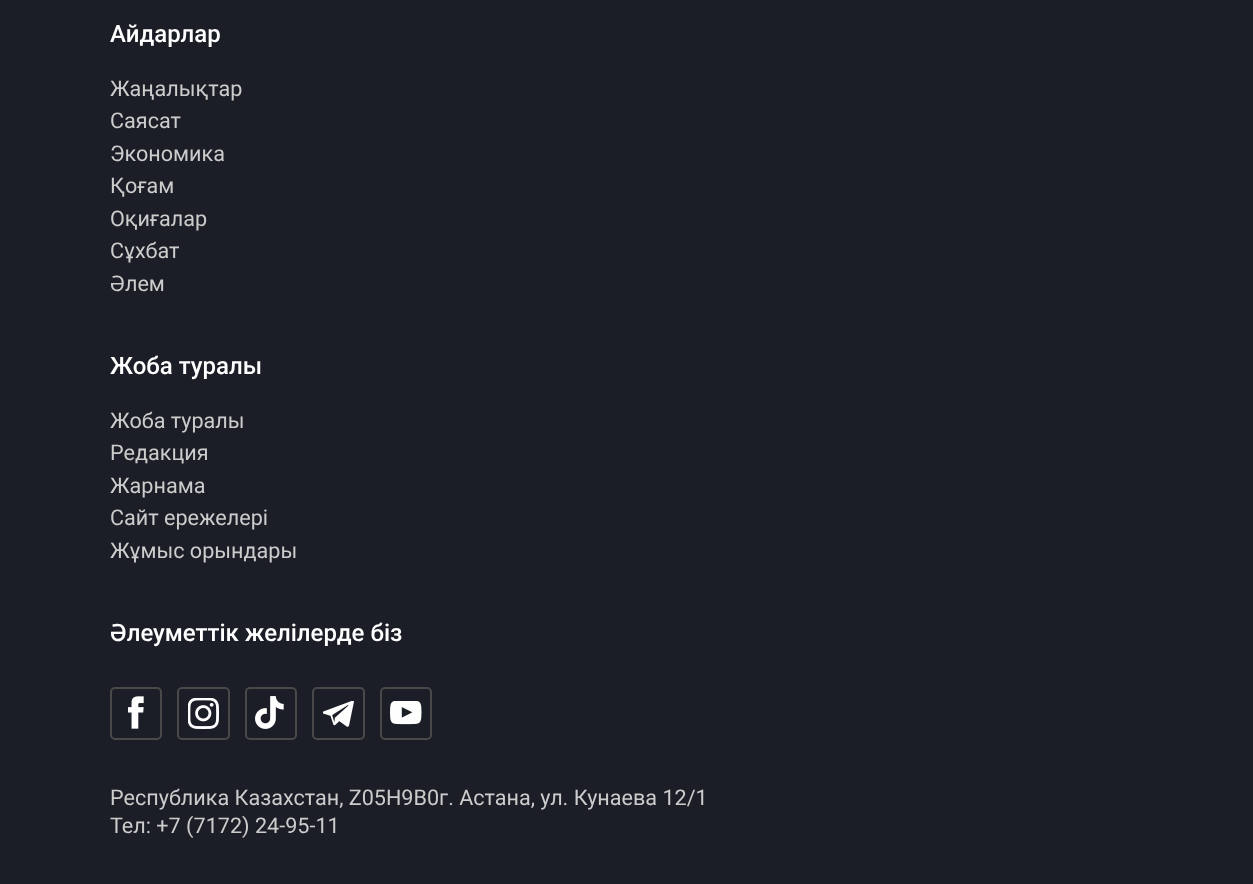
<svg xmlns="http://www.w3.org/2000/svg" width="1253" height="884" viewBox="0 0 1253 884">
  <rect width="100%" height="100%" fill="rgb(27,30,38)"/>
  <text x="110" y="42" font-family="Roboto" font-size="24" font-weight="500" fill="rgb(255,255,255)">Айдарлар</text>
  <g font-family="Roboto" font-size="21.6" fill="rgb(204,204,204)">
    <text>
      <tspan x="110" y="96">Жаңалықтар</tspan>
      <tspan x="110" y="128">Саясат</tspan>
      <tspan x="110" y="161">Экономика</tspan>
      <tspan x="110" y="193">Қоғам</tspan>
      <tspan x="110" y="226">Оқиғалар</tspan>
      <tspan x="110" y="258">Сұхбат</tspan>
      <tspan x="110" y="291">Әлем</tspan>
    </text>
  </g>
  <text x="110" y="374" font-family="Roboto" font-size="24" font-weight="500" fill="rgb(255,255,255)">Жоба туралы</text>
  <g font-family="Roboto" font-size="21.6" fill="rgb(204,204,204)">
    <text>
      <tspan x="110" y="428">Жоба туралы</tspan>
      <tspan x="110" y="460">Редакция</tspan>
      <tspan x="110" y="493">Жарнама</tspan>
      <tspan x="110" y="525">Сайт ережелері</tspan>
      <tspan x="110" y="558">Жұмыс орындары</tspan>
    </text>
  </g>
  <text x="110" y="641" font-family="Roboto" font-size="24" font-weight="500" fill="rgb(255,255,255)">Әлеуметтік желілерде біз</text>
  <rect x="111" y="688" width="50" height="51" rx="4" fill="none" stroke="rgb(73,73,73)" stroke-width="2"/>
  <image x="128" y="696" width="16" height="33" href="pic1.png"/>
  <rect x="178" y="688" width="51" height="51" rx="4" fill="none" stroke="rgb(73,73,73)" stroke-width="2"/>
  <image x="188" y="698" width="31" height="31" href="pic2.png"/>
  <rect x="246" y="688" width="50" height="51" rx="4" fill="none" stroke="rgb(73,73,73)" stroke-width="2"/>
  <image x="255" y="696" width="29" height="33" href="pic3.png"/>
  <rect x="313" y="688" width="51" height="51" rx="4" fill="none" stroke="rgb(73,73,73)" stroke-width="2"/>
  <image x="323" y="701" width="31" height="26" href="pic4.png"/>
  <rect x="381" y="688" width="50" height="51" rx="4" fill="none" stroke="rgb(73,73,73)" stroke-width="2"/>
  <image x="390" y="701" width="32" height="24" href="pic5.png"/>
  <g font-family="Roboto" font-size="21.6" fill="rgb(204,204,204)">
    <text>
      <tspan x="110" y="805">Республика Казахстан, Z05H9B0г. Астана, ул. Кунаева 12/1</tspan>
      <tspan x="110" y="833">Тел: +7 (7172) 24-95-11</tspan>
    </text>
  </g>
</svg>
